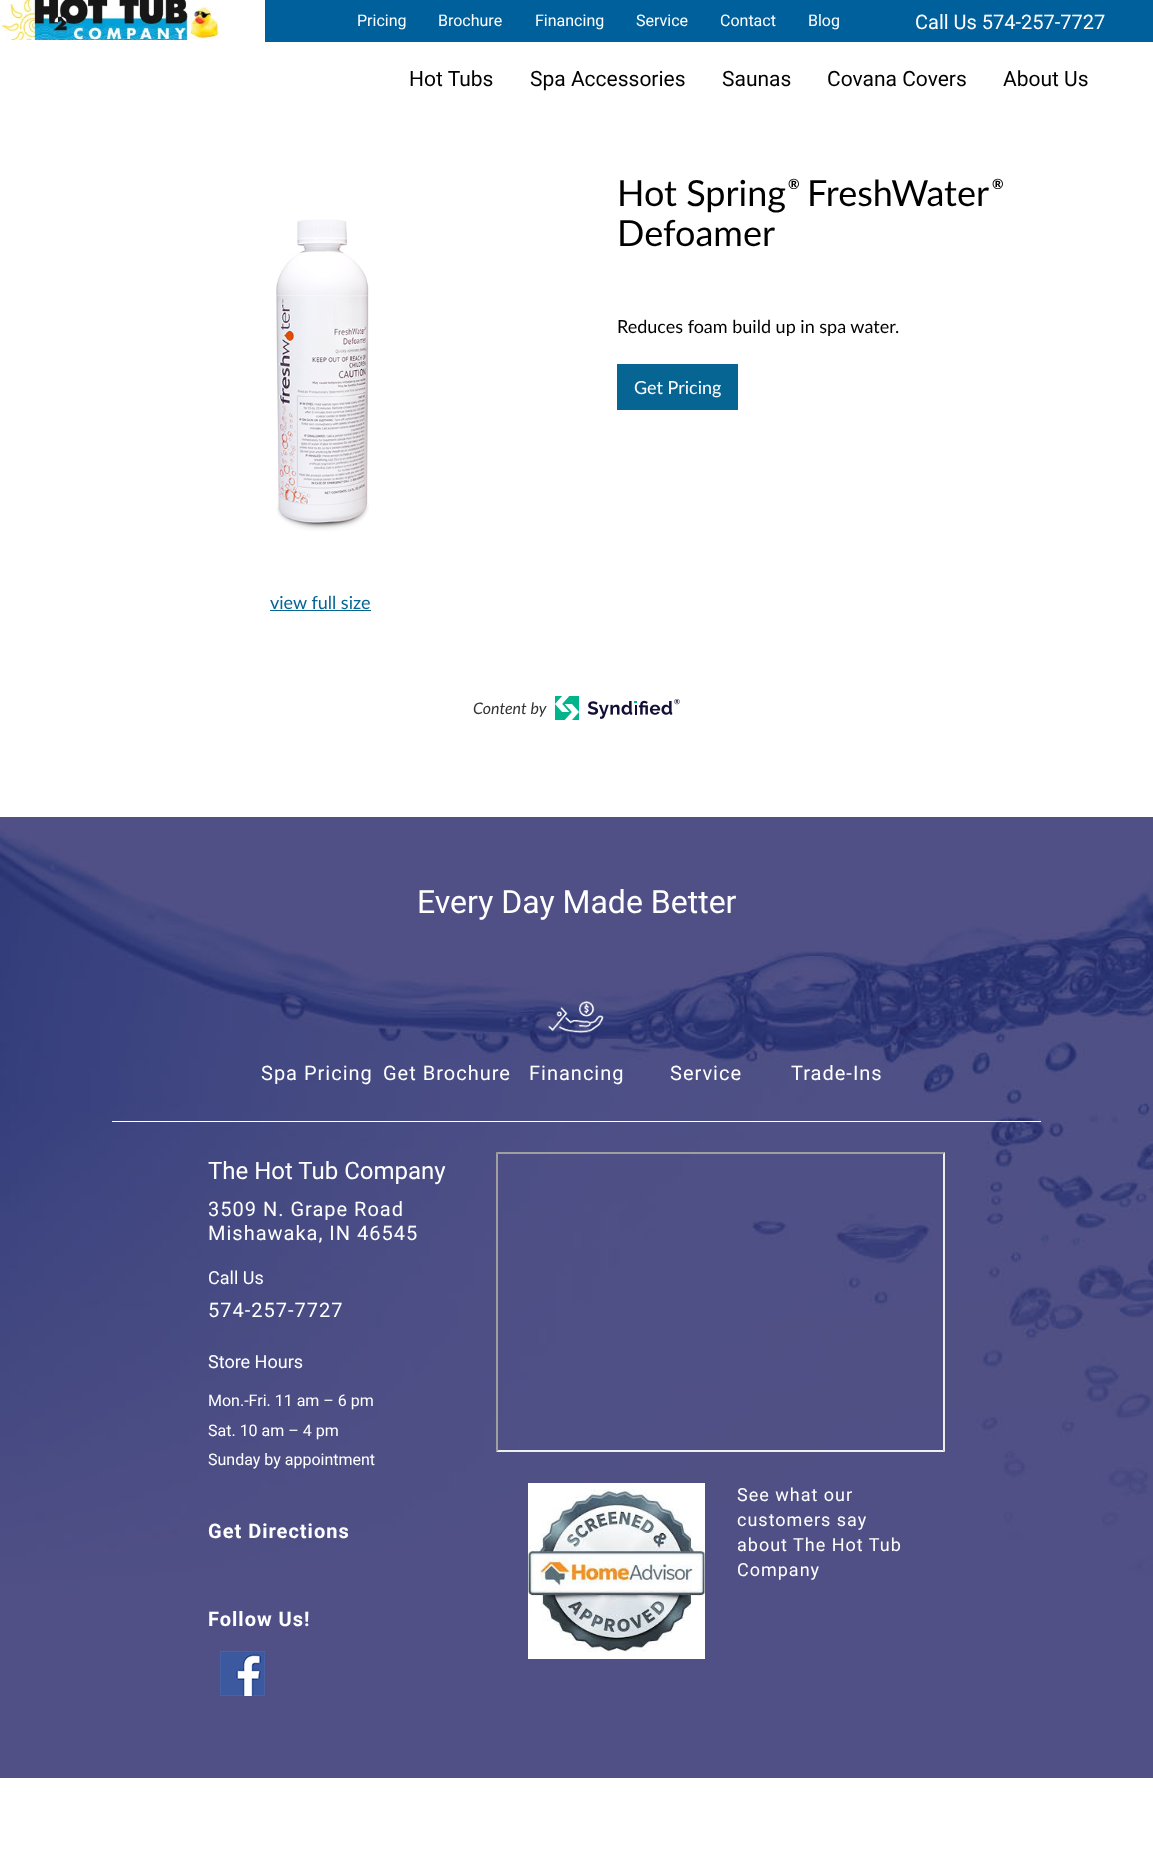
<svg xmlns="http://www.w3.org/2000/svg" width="1153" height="1849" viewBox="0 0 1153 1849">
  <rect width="100%" height="100%" fill="rgb(255,255,255)"/>
  <rect x="265" y="0" width="888" height="42" fill="rgb(0,96,156)"/>
  <g font-family="Roboto" font-size="16" fill="rgb(255,255,255)">
    <text x="357" y="26">Pricing</text>
    <text x="438" y="26">Brochure</text>
    <text x="535" y="26">Financing</text>
    <text x="636" y="26">Service</text>
    <text x="720" y="26">Contact</text>
    <text x="808" y="26">Blog</text>
  </g>
  <text x="915" y="29" font-family="Roboto" font-size="20" fill="rgb(255,255,255)">Call Us 574-257-7727</text>
  <image x="0" y="0" width="220" height="40" href="pic1.png"/>
  <g font-family="Roboto" font-size="21" fill="rgb(0,0,0)">
    <text x="409" y="86">Hot Tubs</text>
    <text x="530" y="86">Spa Accessories</text>
    <text x="722" y="86">Saunas</text>
    <text x="827" y="86">Covana Covers</text>
    <text x="1003" y="86">About Us</text>
  </g>
  <text x="617" y="206" font-family="Lato" font-size="36" fill="rgb(0,0,0)">Hot Spring</text>
  <text x="788" y="189" font-family="Lato" font-size="14" font-weight="bold" fill="rgb(0,0,0)">®</text>
  <text x="807" y="206" font-family="Lato" font-size="36" fill="rgb(0,0,0)">FreshWater</text>
  <text x="992" y="189" font-family="Lato" font-size="14" font-weight="bold" fill="rgb(0,0,0)">®</text>
  <text x="617" y="246" font-family="Lato" font-size="36" fill="rgb(0,0,0)">Defoamer</text>
  <text x="617" y="333" font-family="Lato" font-size="18" fill="rgb(0,0,0)">Reduces foam build up in spa water.</text>
  <rect x="617" y="364" width="121" height="46" fill="rgb(7,101,148)"/>
  <text x="634" y="394" font-family="Lato" font-size="18" fill="rgb(255,255,255)">Get Pricing</text>
  <image x="276" y="219" width="93" height="312" href="pic2.png"/>
  <text x="270" y="609" font-family="Lato" font-size="18" fill="rgb(7,101,148)">view full size</text>
  <rect x="270" y="610" width="101" height="1" fill="rgb(7,101,148)"/>
  <text x="473" y="714" font-family="Lato" font-size="16" font-style="italic" fill="rgb(51,51,51)">Content by</text>
  <image x="555" y="696" width="125" height="24" href="pic3.png"/>
  <image x="0" y="817" width="1153" height="961" href="pic4.png"/>
  <text x="417" y="913" font-family="Roboto" font-size="32" fill="rgb(255,255,255)">Every Day Made Better</text>
  <rect x="112" y="1121" width="929" height="1" fill="rgb(255,255,255)"/>
  <g font-family="Roboto" font-size="20" letter-spacing="1" fill="rgb(255,255,255)">
    <text x="261" y="1080">Spa Pricing</text>
    <text x="383" y="1080">Get Brochure</text>
  </g>
  <image x="548" y="1001" width="56" height="32" href="pic5.png"/>
  <g font-family="Roboto" font-size="20" letter-spacing="1" fill="rgb(255,255,255)">
    <text x="529" y="1080">Financing</text>
    <text x="670" y="1080">Service</text>
    <text x="791" y="1080">Trade-Ins</text>
  </g>
  <text x="208" y="1179" font-family="Roboto" font-size="24" fill="rgb(255,255,255)">The Hot Tub Company</text>
  <g font-family="Roboto" font-size="20" letter-spacing="1" fill="rgb(255,255,255)">
    <text>
      <tspan x="208" y="1216">3509 N. Grape Road</tspan>
      <tspan x="208" y="1240">Mishawaka, IN 46545</tspan>
    </text>
  </g>
  <text x="208" y="1284" font-family="Roboto" font-size="18" fill="rgb(255,255,255)">Call Us</text>
  <text x="208" y="1317" font-family="Roboto" font-size="20" letter-spacing="1" fill="rgb(255,255,255)">574-257-7727</text>
  <text x="208" y="1368" font-family="Roboto" font-size="18" fill="rgb(255,255,255)">Store Hours</text>
  <g font-family="Roboto" font-size="16" fill="rgb(255,255,255)">
    <text>
      <tspan x="208" y="1406">Mon.-Fri. 11 am – 6 pm</tspan>
      <tspan x="208" y="1436">Sat. 10 am – 4 pm</tspan>
      <tspan x="208" y="1465">Sunday by appointment</tspan>
    </text>
  </g>
  <g font-family="Roboto" font-size="20" font-weight="bold" letter-spacing="1" fill="rgb(255,255,255)">
    <text x="208" y="1538">Get Directions</text>
    <text x="208" y="1626">Follow Us!</text>
  </g>
  <image x="220" y="1651" width="45" height="45" href="pic6.png"/>
  <path d="M496 1152H945L943 1154H498Z" fill="rgb(159,159,159)"/>
  <path d="M945 1152V1452L943 1450V1154Z" fill="rgb(238,238,238)"/>
  <path d="M945 1452H496L498 1450H943Z" fill="rgb(238,238,238)"/>
  <path d="M496 1452V1152L498 1154V1450Z" fill="rgb(159,159,159)"/>
  <image x="528" y="1483" width="177" height="176" href="pic7.png"/>
  <g font-family="Roboto" font-size="18" letter-spacing="1" fill="rgb(255,255,255)">
    <text>
      <tspan x="737" y="1501">See what our</tspan>
      <tspan x="737" y="1526">customers say</tspan>
      <tspan x="737" y="1551">about The Hot Tub</tspan>
      <tspan x="737" y="1576">Company</tspan>
    </text>
  </g>
</svg>
